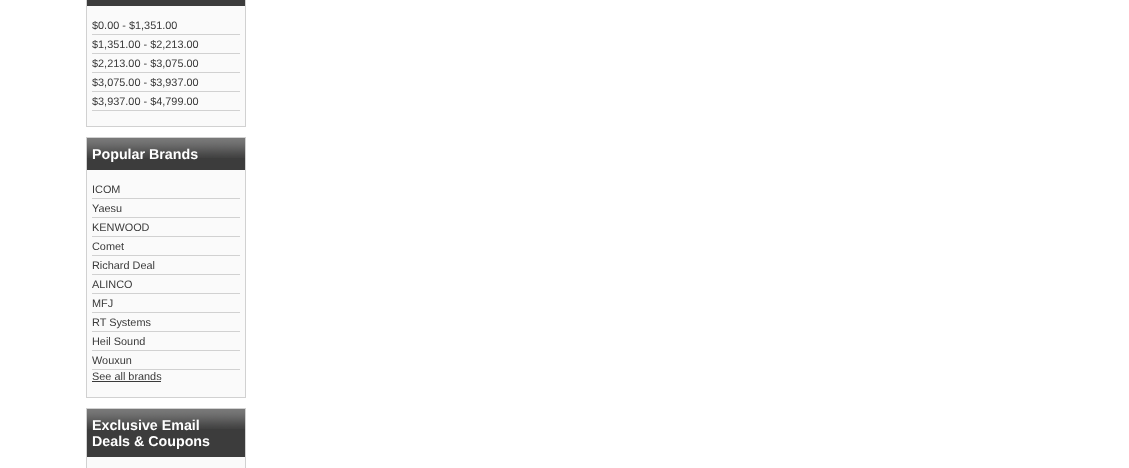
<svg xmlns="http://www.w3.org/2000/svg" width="1129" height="468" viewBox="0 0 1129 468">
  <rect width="100%" height="100%" fill="rgb(255,255,255)"/>
  <rect x="87" y="6" width="158" height="120" fill="rgb(250,250,250)"/>
  <rect x="86.5" y="-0.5" width="159" height="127" fill="none" stroke="rgb(209,209,209)"/>
  <rect x="87" y="0" width="158" height="6" fill="rgb(60,60,60)"/>
  <rect x="92" y="34" width="148" height="1" fill="rgb(209,209,209)"/>
  <text x="92" y="29" font-family="Liberation Sans" font-size="10.9" fill="rgb(58,58,58)">$0.00 - $1,351.00</text>
  <rect x="92" y="53" width="148" height="1" fill="rgb(209,209,209)"/>
  <text x="92" y="48" font-family="Liberation Sans" font-size="10.9" fill="rgb(58,58,58)">$1,351.00 - $2,213.00</text>
  <rect x="92" y="72" width="148" height="1" fill="rgb(209,209,209)"/>
  <text x="92" y="67" font-family="Liberation Sans" font-size="10.9" fill="rgb(58,58,58)">$2,213.00 - $3,075.00</text>
  <rect x="92" y="91" width="148" height="1" fill="rgb(209,209,209)"/>
  <text x="92" y="86" font-family="Liberation Sans" font-size="10.9" fill="rgb(58,58,58)">$3,075.00 - $3,937.00</text>
  <rect x="92" y="110" width="148" height="1" fill="rgb(209,209,209)"/>
  <text x="92" y="105" font-family="Liberation Sans" font-size="10.9" fill="rgb(58,58,58)">$3,937.00 - $4,799.00</text>
  <rect x="87" y="170" width="158" height="227" fill="rgb(250,250,250)"/>
  <rect x="86.5" y="137.5" width="159" height="260" fill="none" stroke="rgb(209,209,209)"/>
  <rect x="87" y="158" width="158" height="12" fill="rgb(60,60,60)"/>
  <image x="87" y="138" width="158" height="20" href="pic1.png"/>
  <text x="92" y="159" font-family="Liberation Sans" font-size="14.25" font-weight="bold" fill="rgb(255,255,255)">Popular Brands</text>
  <rect x="92" y="198" width="148" height="1" fill="rgb(209,209,209)"/>
  <text x="92" y="193" font-family="Liberation Sans" font-size="10.9" fill="rgb(58,58,58)">ICOM</text>
  <rect x="92" y="217" width="148" height="1" fill="rgb(209,209,209)"/>
  <text x="92" y="212" font-family="Liberation Sans" font-size="10.9" fill="rgb(58,58,58)">Yaesu</text>
  <rect x="92" y="236" width="148" height="1" fill="rgb(209,209,209)"/>
  <text x="92" y="231" font-family="Liberation Sans" font-size="10.9" fill="rgb(58,58,58)">KENWOOD</text>
  <rect x="92" y="255" width="148" height="1" fill="rgb(209,209,209)"/>
  <text x="92" y="250" font-family="Liberation Sans" font-size="10.9" fill="rgb(58,58,58)">Comet</text>
  <rect x="92" y="274" width="148" height="1" fill="rgb(209,209,209)"/>
  <text x="92" y="269" font-family="Liberation Sans" font-size="10.9" fill="rgb(58,58,58)">Richard Deal</text>
  <rect x="92" y="293" width="148" height="1" fill="rgb(209,209,209)"/>
  <text x="92" y="288" font-family="Liberation Sans" font-size="10.9" fill="rgb(58,58,58)">ALINCO</text>
  <rect x="92" y="312" width="148" height="1" fill="rgb(209,209,209)"/>
  <text x="92" y="307" font-family="Liberation Sans" font-size="10.9" fill="rgb(58,58,58)">MFJ</text>
  <rect x="92" y="331" width="148" height="1" fill="rgb(209,209,209)"/>
  <text x="92" y="326" font-family="Liberation Sans" font-size="10.9" fill="rgb(58,58,58)">RT Systems</text>
  <rect x="92" y="350" width="148" height="1" fill="rgb(209,209,209)"/>
  <text x="92" y="345" font-family="Liberation Sans" font-size="10.9" fill="rgb(58,58,58)">Heil Sound</text>
  <rect x="92" y="369" width="148" height="1" fill="rgb(209,209,209)"/>
  <g font-family="Liberation Sans" font-size="10.9" fill="rgb(58,58,58)">
    <text>
      <tspan x="92" y="364">Wouxun</tspan>
      <tspan x="92" y="380">See all brands</tspan>
    </text>
  </g>
  <rect x="92" y="381" width="69" height="1" fill="rgb(58,58,58)"/>
  <rect x="87" y="457" width="158" height="11" fill="rgb(250,250,250)"/>
  <rect x="86.5" y="408.5" width="159" height="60" fill="none" stroke="rgb(209,209,209)"/>
  <rect x="87" y="429" width="158" height="28" fill="rgb(60,60,60)"/>
  <image x="87" y="409" width="158" height="20" href="pic1.png"/>
  <g font-family="Liberation Sans" font-size="14.25" font-weight="bold" fill="rgb(255,255,255)">
    <text>
      <tspan x="92" y="430">Exclusive Email</tspan>
      <tspan x="92" y="446">Deals &amp; Coupons</tspan>
    </text>
  </g>
</svg>
